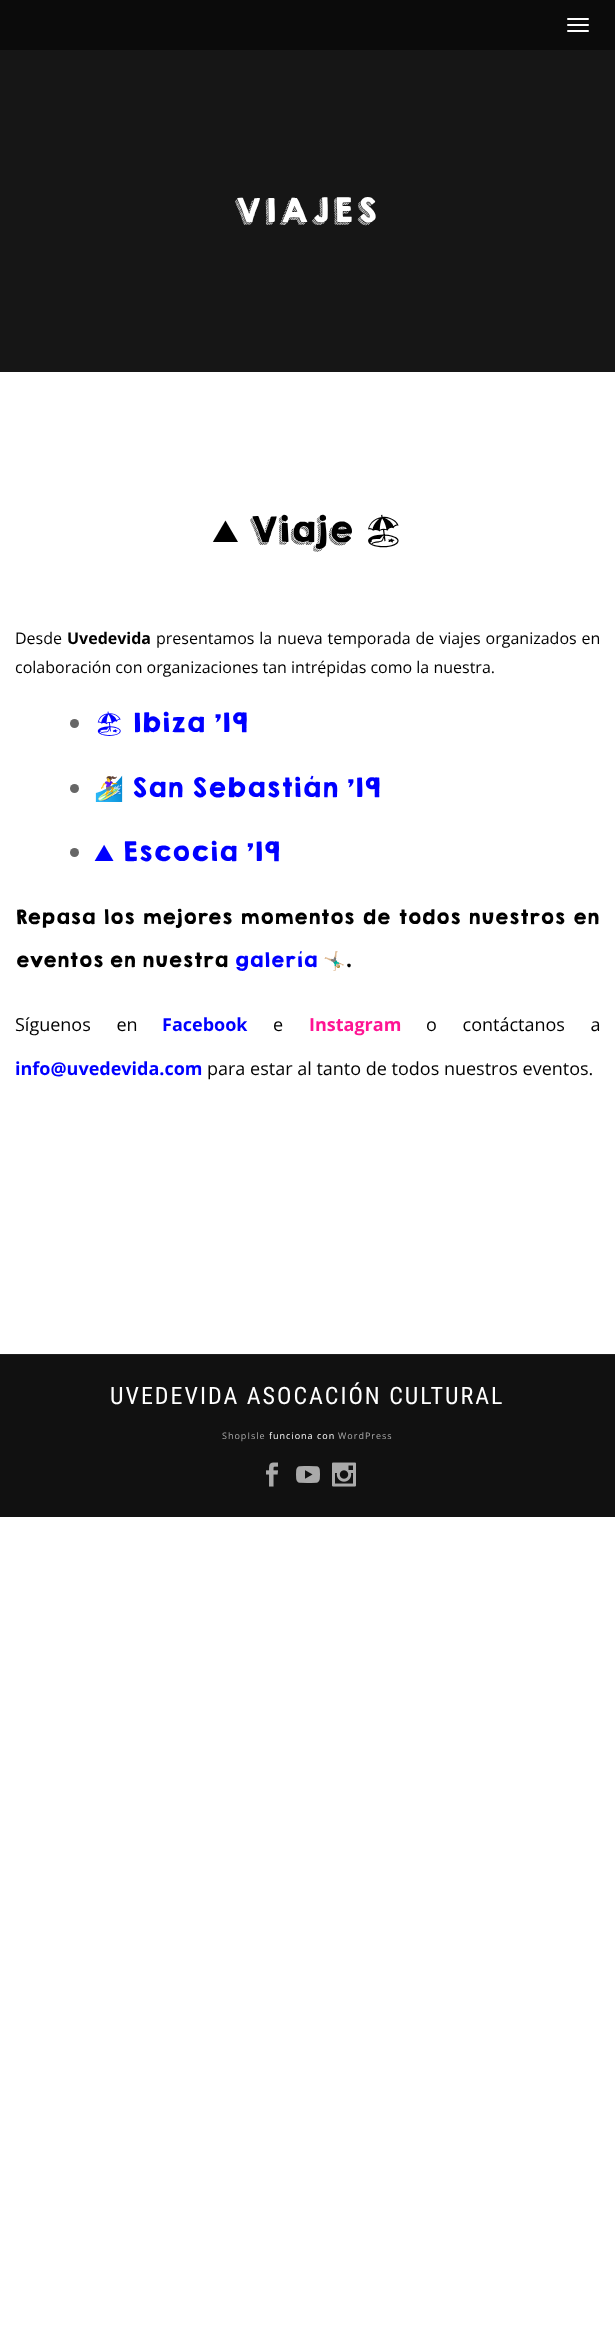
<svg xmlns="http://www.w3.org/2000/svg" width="615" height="2341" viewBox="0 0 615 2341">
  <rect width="100%" height="100%" fill="rgb(255,255,255)"/>
  <rect x="0" y="0" width="615" height="50" fill="rgb(11,11,11)"/>
  <rect x="567" y="18" width="22" height="2" rx="1" fill="rgb(255,255,255)"/>
  <rect x="567" y="24" width="22" height="2" rx="1" fill="rgb(255,255,255)"/>
  <rect x="567" y="30" width="22" height="2" rx="1" fill="rgb(255,255,255)"/>
  <rect x="0" y="50" width="615" height="322" fill="rgb(22,22,22)"/>
  <text x="234" y="222" font-family="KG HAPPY" font-size="30" letter-spacing="4" fill="rgb(255,255,255)">VIAJES</text>
  <text x="212" y="542" font-family="FreeSerif" font-size="32" fill="rgb(0,0,0)">⛰</text>
  <text x="249" y="542" font-family="KG HAPPY" font-size="32" fill="rgb(0,0,0)">Viaje</text>
  <text x="363" y="542" font-family="Noto Emoji" font-size="32" fill="rgb(0,0,0)">🏖</text>
  <text x="15" y="644" font-family="Open Sans" font-size="16" fill="rgb(0,0,0)">Desde</text>
  <text x="67" y="644" font-family="Open Sans" font-size="16" font-weight="bold" fill="rgb(0,0,0)">Uvedevida</text>
  <g font-family="Open Sans" font-size="16" fill="rgb(0,0,0)">
    <text x="156" y="644" word-spacing="0.75">presentamos la nueva temporada de viajes organizados en</text>
    <text x="15" y="673">colaboración con organizaciones tan intrépidas como la nuestra.</text>
  </g>
  <circle cx="74.5" cy="723.5" r="4.5" fill="rgb(102,102,102)"/>
  <text x="94" y="732" font-family="Noto Emoji" font-size="24" fill="rgb(0,0,255)">🏖</text>
  <text x="132" y="732" font-family="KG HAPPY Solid" font-size="24" fill="rgb(0,0,255)">Ibiza ’19</text>
  <circle cx="74.5" cy="788.5" r="4.5" fill="rgb(102,102,102)"/>
  <text x="94" y="797" font-family="Noto Color Emoji" font-size="24" fill="rgb(0,0,255)">🏄‍♀</text>
  <text x="131" y="797" font-family="KG HAPPY Solid" font-size="24" fill="rgb(0,0,255)">San Sebastián ’19</text>
  <circle cx="74.5" cy="852.5" r="4.5" fill="rgb(102,102,102)"/>
  <text x="94" y="861" font-family="FreeSerif" font-size="24" fill="rgb(0,0,255)">⛰</text>
  <text x="122" y="861" font-family="KG HAPPY Solid" font-size="24" fill="rgb(0,0,255)">Escocia ’19</text>
  <g font-family="KG HAPPY Solid" font-size="18" fill="rgb(0,0,0)">
    <text x="15" y="924" word-spacing="1.75">Repasa los mejores momentos de todos nuestros en</text>
    <text x="15" y="967">eventos en nuestra</text>
  </g>
  <text x="234" y="967" font-family="KG HAPPY Solid" font-size="18" fill="rgb(0,0,255)">galería</text>
  <text x="323" y="967" font-family="Noto Color Emoji" font-size="18" fill="rgb(0,0,0)">🤸🏼‍♂</text>
  <text x="345" y="967" font-family="KG HAPPY Solid" font-size="18" fill="rgb(0,0,0)">.</text>
  <text x="15" y="1031" word-spacing="21" font-family="Open Sans" font-size="18" fill="rgb(0,0,0)">Síguenos en</text>
  <text x="162" y="1031" font-family="Open Sans" font-size="18" font-weight="bold" fill="rgb(0,0,255)">Facebook</text>
  <text x="273" y="1031" font-family="Open Sans" font-size="18" fill="rgb(0,0,0)">e</text>
  <text x="309" y="1031" font-family="Open Sans" font-size="18" font-weight="bold" fill="rgb(255,20,147)">Instagram</text>
  <text x="426" y="1031" word-spacing="21" font-family="Open Sans" font-size="18" fill="rgb(0,0,0)">o contáctanos a</text>
  <text x="15" y="1075" font-family="Open Sans" font-size="18" font-weight="bold" fill="rgb(0,0,255)">info@uvedevida.com</text>
  <text x="207" y="1075" font-family="Open Sans" font-size="18" fill="rgb(0,0,0)">para estar al tanto de todos nuestros eventos.</text>
  <rect x="0" y="1355" width="615" height="162" fill="rgb(17,17,17)"/>
  <rect x="0" y="1354" width="615" height="1" fill="rgb(32,32,32)"/>
  <text x="110" y="1404" font-family="Roboto Condensed" font-size="24" letter-spacing="2" fill="rgb(255,255,255)">UVEDEVIDA ASOCACIÓN CULTURAL</text>
  <text x="222" y="1439" font-family="Open Sans" font-size="9" letter-spacing="1" fill="rgb(170,170,170)">ShopIsle</text>
  <text x="269" y="1439" font-family="Open Sans" font-size="9" letter-spacing="1" fill="rgb(255,255,255)">funciona con</text>
  <text x="338" y="1439" font-family="Open Sans" font-size="9" letter-spacing="1" fill="rgb(170,170,170)">WordPress</text>
  <image x="266" y="1462" width="12" height="25" href="pic1.png"/>
  <image x="296" y="1466" width="24" height="17" href="pic2.png"/>
  <image x="332" y="1462" width="24" height="25" href="pic3.png"/>
</svg>
